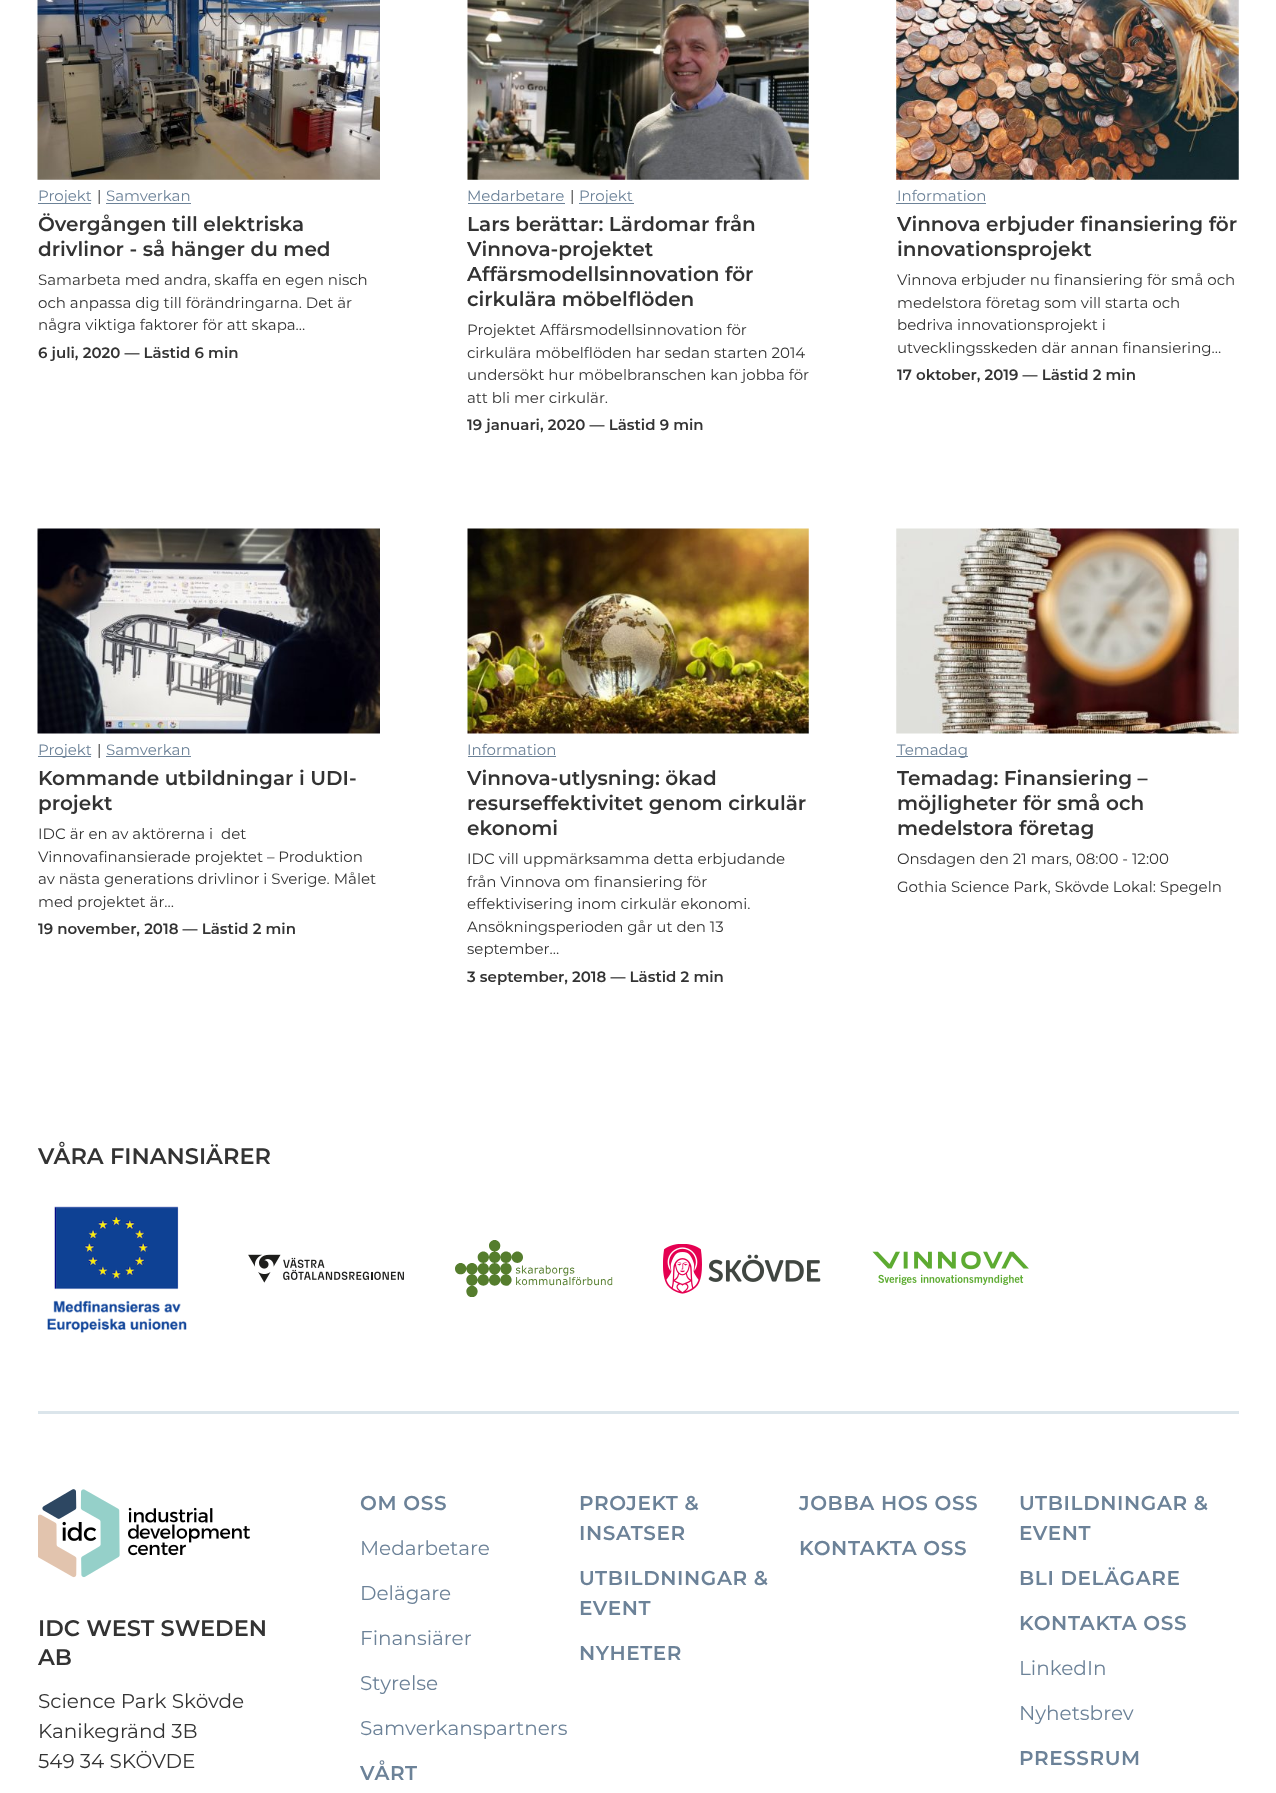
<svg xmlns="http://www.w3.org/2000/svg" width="1276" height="1793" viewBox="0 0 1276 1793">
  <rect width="100%" height="100%" fill="rgb(255,255,255)"/>
  <image x="37" y="0" width="343" height="180" href="pic1.png"/>
  <rect x="38" y="203" width="53" height="1" fill="rgb(108,130,152)"/>
  <text x="38" y="201" font-family="'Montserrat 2'" font-size="15" font-weight="100" fill="rgb(108,130,152)">Projekt</text>
  <text x="97" y="201" font-family="'Montserrat 2'" font-size="15" font-weight="100" fill="rgb(51,51,51)">|</text>
  <text x="106" y="201" font-family="'Montserrat 2'" font-size="15" font-weight="100" fill="rgb(108,130,152)">Samverkan</text>
  <rect x="106" y="203" width="85" height="1" fill="rgb(108,130,152)"/>
  <g font-family="Montserrat" font-size="20" font-weight="100" fill="rgb(51,51,51)">
    <text>
      <tspan x="38" y="231">Övergången till elektriska</tspan>
      <tspan x="38" y="256">drivlinor - så hänger du med</tspan>
    </text>
  </g>
  <g font-family="'Montserrat 2'" font-size="15" font-weight="100" fill="rgb(51,51,51)">
    <text>
      <tspan x="38" y="285">Samarbeta med andra, skaffa en egen nisch</tspan>
      <tspan x="38" y="308">och anpassa dig till förändringarna. Det är</tspan>
      <tspan x="38" y="330">några viktiga faktorer för att skapa…</tspan>
    </text>
  </g>
  <text x="38" y="358" font-family="Montserrat" font-size="15" font-weight="100" fill="rgb(51,51,51)">6 juli, 2020 — Lästid 6 min</text>
  <image x="467" y="0" width="342" height="180" href="pic2.png"/>
  <text x="467" y="201" font-family="'Montserrat 2'" font-size="15" font-weight="100" fill="rgb(108,130,152)">Medarbetare</text>
  <rect x="468" y="203" width="97" height="1" fill="rgb(108,130,152)"/>
  <text x="570" y="201" font-family="'Montserrat 2'" font-size="15" font-weight="100" fill="rgb(51,51,51)">|</text>
  <rect x="579" y="203" width="55" height="1" fill="rgb(108,130,152)"/>
  <text x="579" y="201" font-family="'Montserrat 2'" font-size="15" font-weight="100" fill="rgb(108,130,152)">Projekt</text>
  <g font-family="Montserrat" font-size="20" font-weight="100" fill="rgb(51,51,51)">
    <text>
      <tspan x="467" y="231">Lars berättar: Lärdomar från</tspan>
      <tspan x="467" y="256">Vinnova-projektet</tspan>
      <tspan x="467" y="281">Affärsmodellsinnovation för</tspan>
      <tspan x="467" y="306">cirkulära möbelflöden</tspan>
    </text>
  </g>
  <g font-family="'Montserrat 2'" font-size="15" font-weight="100" fill="rgb(51,51,51)">
    <text>
      <tspan x="467" y="335">Projektet Affärsmodellsinnovation för</tspan>
      <tspan x="467" y="358">cirkulära möbelflöden har sedan starten 2014</tspan>
      <tspan x="467" y="380">undersökt hur möbelbranschen kan jobba för</tspan>
      <tspan x="467" y="403">att bli mer cirkulär.</tspan>
    </text>
  </g>
  <text x="467" y="430" font-family="Montserrat" font-size="15" font-weight="100" fill="rgb(51,51,51)">19 januari, 2020 — Lästid 9 min</text>
  <image x="896" y="0" width="343" height="180" href="pic3.png"/>
  <text x="897" y="201" font-family="'Montserrat 2'" font-size="15" font-weight="100" fill="rgb(108,130,152)">Information</text>
  <rect x="896" y="203" width="90" height="1" fill="rgb(108,130,152)"/>
  <g font-family="Montserrat" font-size="20" font-weight="100" fill="rgb(51,51,51)">
    <text>
      <tspan x="897" y="231">Vinnova erbjuder finansiering för</tspan>
      <tspan x="897" y="256">innovationsprojekt</tspan>
    </text>
  </g>
  <g font-family="'Montserrat 2'" font-size="15" font-weight="100" fill="rgb(51,51,51)">
    <text>
      <tspan x="897" y="285">Vinnova erbjuder nu finansiering för små och</tspan>
      <tspan x="897" y="308">medelstora företag som vill starta och</tspan>
      <tspan x="897" y="330">bedriva innovationsprojekt i</tspan>
      <tspan x="897" y="353">utvecklingsskeden där annan finansiering…</tspan>
    </text>
  </g>
  <text x="897" y="380" font-family="Montserrat" font-size="15" font-weight="100" fill="rgb(51,51,51)">17 oktober, 2019 — Lästid 2 min</text>
  <image x="37" y="528" width="343" height="206" href="pic4.png"/>
  <rect x="38" y="756" width="53" height="1" fill="rgb(108,130,152)"/>
  <text x="38" y="755" font-family="'Montserrat 2'" font-size="15" font-weight="100" fill="rgb(108,130,152)">Projekt</text>
  <text x="97" y="755" font-family="'Montserrat 2'" font-size="15" font-weight="100" fill="rgb(51,51,51)">|</text>
  <text x="106" y="755" font-family="'Montserrat 2'" font-size="15" font-weight="100" fill="rgb(108,130,152)">Samverkan</text>
  <rect x="106" y="756" width="85" height="1" fill="rgb(108,130,152)"/>
  <g font-family="Montserrat" font-size="20" font-weight="100" fill="rgb(51,51,51)">
    <text>
      <tspan x="38" y="785">Kommande utbildningar i UDI-</tspan>
      <tspan x="38" y="810">projekt</tspan>
    </text>
  </g>
  <g font-family="'Montserrat 2'" font-size="15" font-weight="100" fill="rgb(51,51,51)">
    <text xml:space="preserve"><tspan x="38" y="839">IDC är en av aktörerna i  det</tspan><tspan x="38" y="862">Vinnovafinansierade projektet – Produktion</tspan><tspan x="38" y="884">av nästa generations drivlinor i Sverige. Målet</tspan><tspan x="38" y="907">med projektet är…</tspan></text>
  </g>
  <text x="38" y="934" font-family="Montserrat" font-size="15" font-weight="100" fill="rgb(51,51,51)">19 november, 2018 — Lästid 2 min</text>
  <image x="467" y="528" width="342" height="206" href="pic5.png"/>
  <text x="467" y="755" font-family="'Montserrat 2'" font-size="15" font-weight="100" fill="rgb(108,130,152)">Information</text>
  <rect x="468" y="756" width="88" height="1" fill="rgb(108,130,152)"/>
  <g font-family="Montserrat" font-size="20" font-weight="100" fill="rgb(51,51,51)">
    <text>
      <tspan x="467" y="785">Vinnova-utlysning: ökad</tspan>
      <tspan x="467" y="810">resurseffektivitet genom cirkulär</tspan>
      <tspan x="467" y="835">ekonomi</tspan>
    </text>
  </g>
  <g font-family="'Montserrat 2'" font-size="15" font-weight="100" fill="rgb(51,51,51)">
    <text>
      <tspan x="467" y="864">IDC vill uppmärksamma detta erbjudande</tspan>
      <tspan x="467" y="887">från Vinnova om finansiering för</tspan>
      <tspan x="467" y="909">effektivisering inom cirkulär ekonomi.</tspan>
      <tspan x="467" y="932">Ansökningsperioden går ut den 13</tspan>
      <tspan x="467" y="954">september…</tspan>
    </text>
  </g>
  <text x="467" y="982" font-family="Montserrat" font-size="15" font-weight="100" fill="rgb(51,51,51)">3 september, 2018 — Lästid 2 min</text>
  <image x="896" y="528" width="343" height="206" href="pic6.png"/>
  <rect x="896" y="756" width="72" height="1" fill="rgb(108,130,152)"/>
  <text x="897" y="755" font-family="'Montserrat 2'" font-size="15" font-weight="100" fill="rgb(108,130,152)">Temadag</text>
  <g font-family="Montserrat" font-size="20" font-weight="100" fill="rgb(51,51,51)">
    <text>
      <tspan x="897" y="785">Temadag: Finansiering –</tspan>
      <tspan x="897" y="810">möjligheter för små och</tspan>
      <tspan x="897" y="835">medelstora företag</tspan>
    </text>
  </g>
  <g font-family="'Montserrat 2'" font-size="15" font-weight="100" fill="rgb(51,51,51)">
    <text>
      <tspan x="897" y="864">Onsdagen den 21 mars, 08:00 - 12:00</tspan>
      <tspan x="897" y="892">Gothia Science Park, Skövde Lokal: Spegeln</tspan>
    </text>
  </g>
  <text x="38" y="1164" font-family="Montserrat" font-size="22.5" font-weight="100" fill="rgb(51,51,51)">VÅRA FINANSIÄRER</text>
  <image x="47" y="1206" width="140" height="127" href="pic7.png"/>
  <image x="248" y="1254" width="156" height="29" href="pic8.png"/>
  <image x="455" y="1240" width="158" height="57" href="pic9.png"/>
  <image x="663" y="1244" width="158" height="50" href="pic10.png"/>
  <image x="872" y="1251" width="157" height="34" href="pic11.png"/>
  <rect x="38" y="1411" width="1201" height="3" fill="rgb(219,229,235)"/>
  <image x="38" y="1489" width="212" height="89" href="pic12.png"/>
  <g font-family="Montserrat" font-size="22.5" font-weight="100" fill="rgb(51,51,51)">
    <text>
      <tspan x="38" y="1636">IDC WEST SWEDEN</tspan>
      <tspan x="38" y="1665">AB</tspan>
    </text>
  </g>
  <g font-family="'Montserrat 2'" font-size="20" font-weight="100" fill="rgb(51,51,51)">
    <text>
      <tspan x="38" y="1708">Science Park Skövde</tspan>
      <tspan x="38" y="1738">Kanikegränd 3B</tspan>
      <tspan x="38" y="1768">549 34 SKÖVDE</tspan>
    </text>
  </g>
  <text x="360" y="1510" font-family="Montserrat" font-size="20" font-weight="100" letter-spacing="0.6" fill="rgb(108,130,152)">OM OSS</text>
  <g font-family="'Montserrat 2'" font-size="20" font-weight="100" fill="rgb(108,130,152)">
    <text x="360" y="1555">Medarbetare</text>
    <text x="360" y="1600">Delägare</text>
    <text x="360" y="1645">Finansiärer</text>
    <text x="360" y="1690">Styrelse</text>
    <text x="360" y="1735">Samverkanspartners</text>
  </g>
  <g font-family="Montserrat" font-size="20" font-weight="100" letter-spacing="0.6" fill="rgb(108,130,152)">
    <text x="360" y="1780">VÅRT</text>
    <text>
      <tspan x="579" y="1510">PROJEKT &amp;</tspan>
      <tspan x="579" y="1540">INSATSER</tspan>
    </text>
    <text>
      <tspan x="579" y="1585">UTBILDNINGAR &amp;</tspan>
      <tspan x="579" y="1615">EVENT</tspan>
    </text>
    <text x="579" y="1660">NYHETER</text>
    <text x="799" y="1510">JOBBA HOS OSS</text>
    <text x="799" y="1555">KONTAKTA OSS</text>
    <text>
      <tspan x="1019" y="1510">UTBILDNINGAR &amp;</tspan>
      <tspan x="1019" y="1540">EVENT</tspan>
    </text>
    <text x="1019" y="1585">BLI DELÄGARE</text>
    <text x="1019" y="1630">KONTAKTA OSS</text>
  </g>
  <g font-family="'Montserrat 2'" font-size="20" font-weight="100" fill="rgb(108,130,152)">
    <text x="1019" y="1675">LinkedIn</text>
    <text x="1019" y="1720">Nyhetsbrev</text>
  </g>
  <text x="1019" y="1765" font-family="Montserrat" font-size="20" font-weight="100" letter-spacing="0.6" fill="rgb(108,130,152)">PRESSRUM</text>
</svg>
